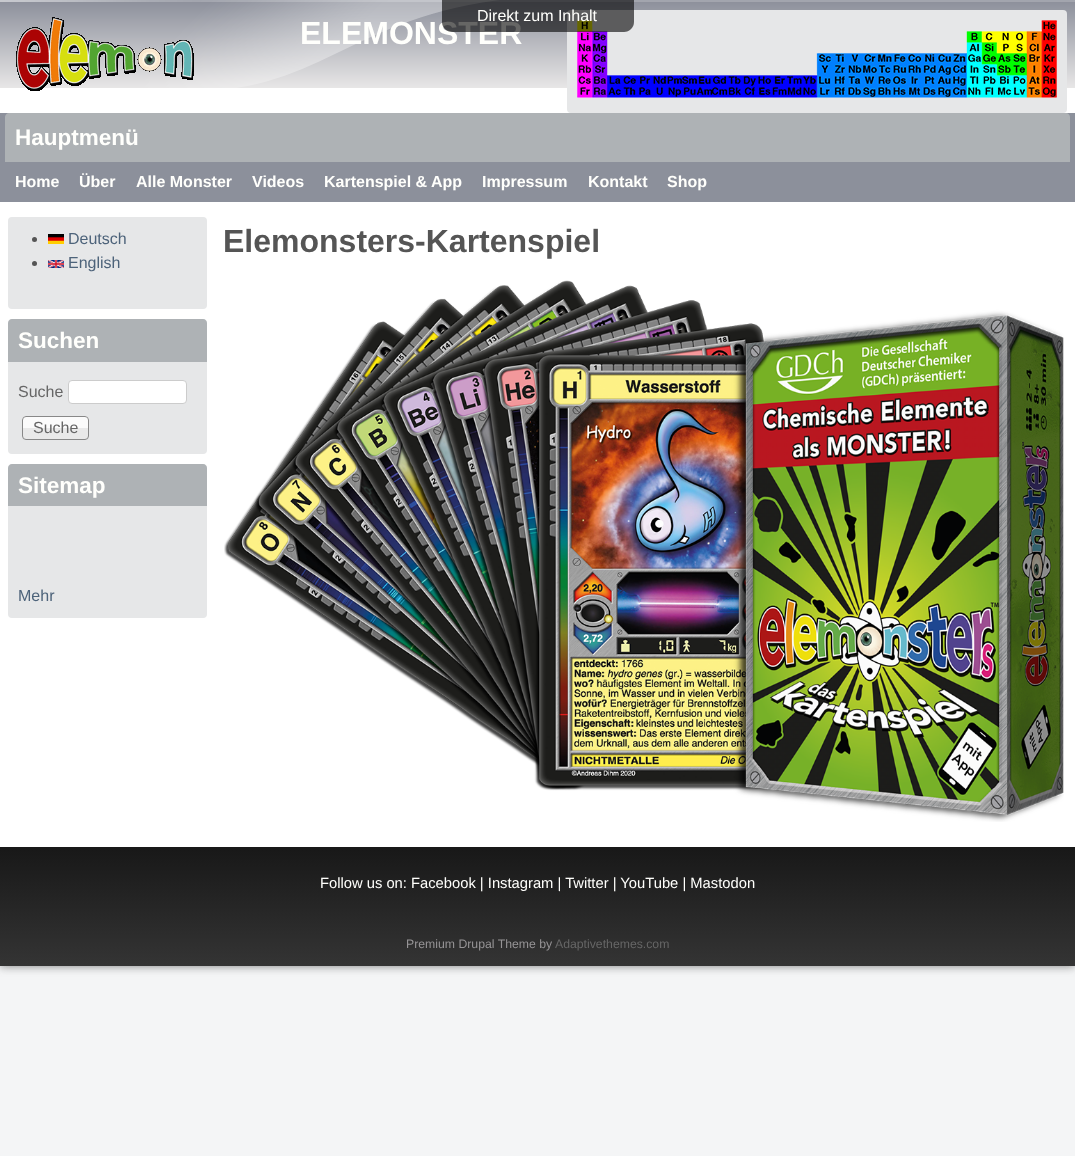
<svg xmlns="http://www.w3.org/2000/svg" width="1075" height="1156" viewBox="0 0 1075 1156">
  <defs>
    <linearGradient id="g1" gradientUnits="userSpaceOnUse" x1="538" y1="847" x2="538" y2="966"><stop offset="0" stop-color="rgb(24,24,24)"/><stop offset="1" stop-color="rgb(52,52,52)"/></linearGradient>
  </defs>
  <rect width="100%" height="100%" fill="rgb(244,245,246)"/>
  <rect x="0" y="0" width="1075" height="966" fill="rgba(76,76,76,0.7)" filter="blur(5px)"/>
  <image x="499" y="0" width="576" height="88" href="pic1.png"/>
  <image x="0" y="0" width="499" height="88" href="pic2.png"/>
  <text x="300" y="44" font-family="Liberation Sans" font-size="32" font-weight="bold" fill="rgb(255,255,252)">ELEMONSTER</text>
  <rect x="0" y="88" width="1075" height="759" fill="rgb(255,255,255)"/>
  <rect x="567" y="10" width="500" height="103" rx="4" fill="rgb(230,231,232)"/>
  <image x="577" y="20" width="480" height="78" href="pic4.png"/>
  <path d="M442 0H634V22C634 27.5 629.5 32 624 32H452C446.5 32 442 27.5 442 22Z" fill="rgba(0,0,0,0.6)"/>
  <text x="477" y="21" font-family="Liberation Sans" font-size="16" fill="rgb(255,255,252)">Direkt zum Inhalt</text>
  <image x="16" y="17" width="178" height="74" href="pic3.png"/>
  <rect x="0" y="113" width="1075" height="89" fill="rgb(140,144,155)"/>
  <path d="M9 113H1066C1068 113 1070 115 1070 117V162H5V117C5 115 7 113 9 113Z" fill="rgb(174,178,181)"/>
  <text x="15" y="145" font-family="Liberation Sans" font-size="22.5" font-weight="bold" fill="rgb(255,255,252)">Hauptmenü</text>
  <g font-family="Liberation Sans" font-size="16" font-weight="bold" fill="rgb(255,255,252)">
    <text x="15" y="187">Home</text>
    <text x="79" y="187">Über</text>
    <text x="136" y="187">Alle Monster</text>
    <text x="252" y="187">Videos</text>
    <text x="324" y="187">Kartenspiel &amp; App</text>
    <text x="482" y="187">Impressum</text>
    <text x="588" y="187">Kontakt</text>
    <text x="667" y="187">Shop</text>
  </g>
  <rect x="8" y="217" width="199" height="92" rx="4" fill="rgb(230,231,232)"/>
  <circle cx="34.5" cy="239.5" r="2.5" fill="rgb(85,85,85)"/>
  <image x="48" y="234" width="16" height="10" href="pic5.png"/>
  <text x="68" y="244" font-family="Liberation Sans" font-size="16" fill="rgb(77,99,122)">Deutsch</text>
  <circle cx="34.5" cy="263.5" r="2.5" fill="rgb(85,85,85)"/>
  <image x="48" y="260" width="16" height="8" href="pic6.png"/>
  <text x="68" y="268" font-family="Liberation Sans" font-size="16" fill="rgb(77,99,122)">English</text>
  <rect x="8" y="319" width="199" height="135" rx="4" fill="rgb(230,231,232)"/>
  <path d="M12 319H203C205 319 207 321 207 323V362H8V323C8 321 10 319 12 319Z" fill="rgb(174,178,181)"/>
  <text x="18" y="348" font-family="Liberation Sans" font-size="22.5" font-weight="bold" fill="rgb(255,255,252)">Suchen</text>
  <text x="18" y="397" font-family="Liberation Sans" font-size="16" fill="rgb(102,102,102)">Suche</text>
  <rect x="68.5" y="380.5" width="118" height="23" rx="3.5" fill="rgb(255,255,255)" stroke="rgb(204,204,204)"/>
  <image x="22" y="416" width="67" height="24" href="pic7.png"/>
  <rect x="22.5" y="416.5" width="66" height="23" rx="3.5" fill="none" stroke="rgb(136,136,136)"/>
  <text x="33" y="433" font-family="Liberation Sans" font-size="16" fill="rgb(102,102,102)">Suche</text>
  <rect x="8" y="464" width="199" height="154" rx="4" fill="rgb(230,231,232)"/>
  <path d="M12 464H203C205 464 207 466 207 468V506H8V468C8 466 10 464 12 464Z" fill="rgb(174,178,181)"/>
  <text x="18" y="493" font-family="Liberation Sans" font-size="22.5" font-weight="bold" fill="rgb(255,255,252)">Sitemap</text>
  <text x="18" y="601" font-family="Liberation Sans" font-size="16" fill="rgb(77,99,122)">Mehr</text>
  <text x="223" y="252" font-family="Liberation Sans" font-size="32" font-weight="bold" fill="rgb(85,85,85)">Elemonsters-Kartenspiel</text>
  <image x="224" y="280" width="840" height="542" href="pic8.png"/>
  <rect x="0" y="847" width="1075" height="119" fill="url(#g1)"/>
  <text x="320" y="888" font-family="Liberation Sans" font-size="14.75" fill="rgb(255,255,252)">Follow us on: Facebook | Instagram | Twitter | YouTube | Mastodon</text>
  <text x="406" y="948" font-family="Liberation Sans" font-size="12.25" fill="rgb(150,148,150)">Premium Drupal Theme by</text>
  <text x="555" y="948" font-family="Liberation Sans" font-size="12.25" fill="rgb(102,102,102)">Adaptivethemes.com</text>
</svg>
